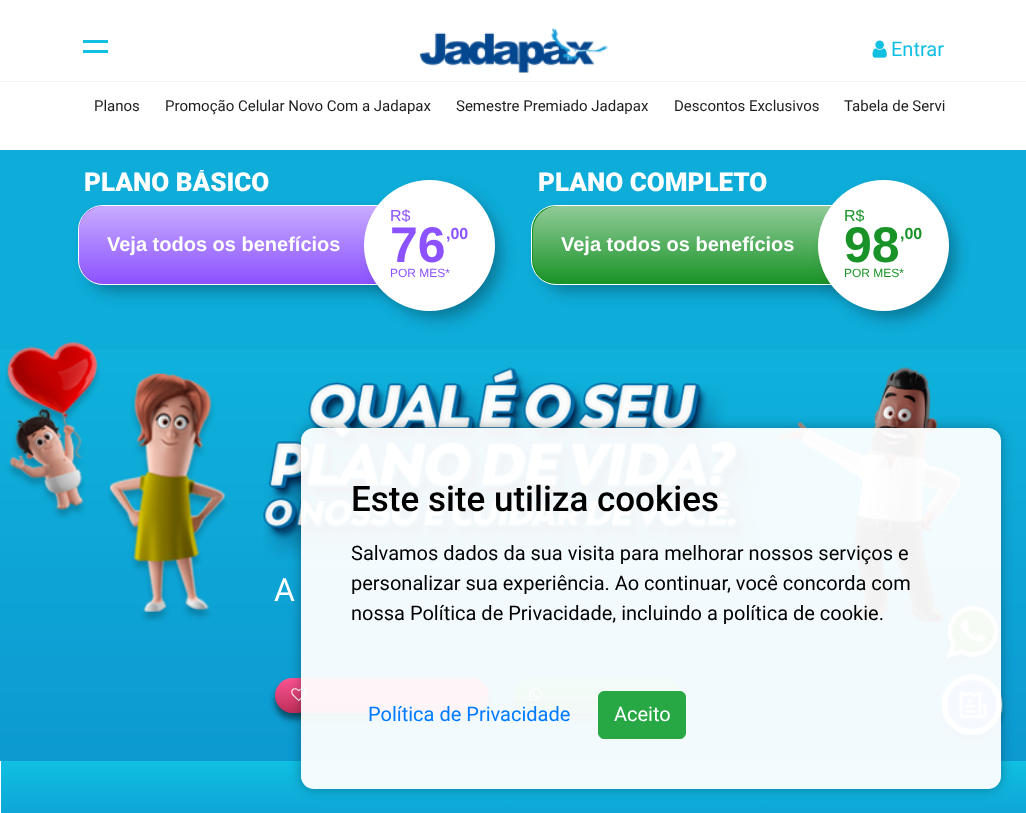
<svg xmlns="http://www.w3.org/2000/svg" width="1026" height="813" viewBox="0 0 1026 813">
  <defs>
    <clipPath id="clip1"><rect x="60" y="170" width="906" height="159"/></clipPath>
    <linearGradient id="g1" gradientUnits="userSpaceOnUse" x1="271" y1="206" x2="271" y2="284"><stop offset="0" stop-color="rgb(255,255,255)" stop-opacity="0.52"/><stop offset="1" stop-color="rgb(255,255,255)" stop-opacity="0"/></linearGradient>
    <linearGradient id="g2" gradientUnits="userSpaceOnUse" x1="725" y1="206" x2="725" y2="284"><stop offset="0" stop-color="rgb(255,255,255)" stop-opacity="0.52"/><stop offset="1" stop-color="rgb(255,255,255)" stop-opacity="0"/></linearGradient>
    <linearGradient id="g3" gradientUnits="userSpaceOnUse" x1="382" y1="678" x2="382" y2="713"><stop offset="0" stop-color="rgb(251,83,146)"/><stop offset="1" stop-color="rgb(190,47,89)"/></linearGradient>
    <linearGradient id="g4" gradientUnits="userSpaceOnUse" x1="597" y1="678" x2="597" y2="713"><stop offset="0" stop-color="rgb(26,197,121)"/><stop offset="1" stop-color="rgb(16,137,76)"/></linearGradient>
    <linearGradient id="g5" gradientUnits="userSpaceOnUse" x1="513" y1="761" x2="513" y2="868"><stop offset="0" stop-color="rgb(16,191,226)"/><stop offset="1" stop-color="rgb(11,140,202)"/></linearGradient>
    <clipPath id="clip2"><path d="M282 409H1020V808H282ZM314 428H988C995 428 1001 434 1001 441V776C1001 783 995 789 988 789H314C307 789 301 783 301 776V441C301 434 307 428 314 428Z" clip-rule="evenodd"/></clipPath>
  </defs>
  <rect width="100%" height="100%" fill="rgb(255,255,255)"/>
  <image x="0" y="349" width="1026" height="412" href="pic1.png"/>
  <rect x="83" y="40" width="25" height="3" fill="rgb(16,191,226)"/>
  <rect x="83" y="50" width="25" height="3" fill="rgb(16,191,226)"/>
  <image x="419" y="28" width="189" height="45" href="pic2.png"/>
  <image x="872" y="40" width="15" height="18" href="pic3.png"/>
  <text x="891" y="56" font-family="Roboto" font-size="20" fill="rgb(16,191,226)">Entrar</text>
  <rect x="0" y="81" width="1026" height="1" fill="rgb(244,244,244)"/>
  <g font-family="Roboto" font-size="15" fill="rgb(28,30,32)">
    <text x="94" y="111">Planos</text>
    <text x="165" y="111">Promoção Celular Novo Com a Jadapax</text>
    <text x="456" y="111">Semestre Premiado Jadapax</text>
    <text x="674" y="111">Descontos Exclusivos</text>
    <text x="844" y="111">Tabela de Servi</text>
  </g>
  <rect x="0" y="150" width="1026" height="199" fill="rgb(14,172,217)"/>
  <g clip-path="url(#clip1)">
    <text x="84" y="191" font-family="Roboto" font-size="26" font-weight="900" fill="rgb(255,255,255)">PLANO BÁSICO</text>
  </g>
  <rect x="89" y="216" width="382" height="75" rx="23" fill="rgba(0,0,0,0.3)" filter="blur(7.5px)"/>
  <rect x="78.5" y="205.5" width="386" height="79" rx="24.5" fill="rgb(140,82,255)" stroke="rgb(255,255,255)"/>
  <text x="107" y="251" font-family="Liberation Sans" font-size="20" font-weight="bold" fill="rgb(255,255,255)">Veja todos os benefícios</text>
  <rect x="79" y="206" width="385" height="78" rx="25" fill="url(#g1)"/>
  <rect x="375" y="191" width="126" height="127" rx="63" fill="rgba(0,0,0,0.3)" filter="blur(7.5px)"/>
  <circle cx="429.5" cy="245.5" r="65.5" fill="rgb(255,255,255)"/>
  <text x="390" y="221" font-family="Liberation Sans" font-size="16" fill="rgb(140,82,255)">R$</text>
  <text x="390" y="262" font-family="Liberation Sans" font-size="50" font-weight="bold" fill="rgb(140,82,255)">76</text>
  <text x="446" y="239" font-family="Liberation Sans" font-size="16" font-weight="bold" fill="rgb(140,82,255)">,00</text>
  <text x="390" y="277" font-family="Liberation Sans" font-size="12" fill="rgb(140,82,255)">POR MES*</text>
  <text x="538" y="191" font-family="Roboto" font-size="26" font-weight="900" fill="rgb(255,255,255)">PLANO COMPLETO</text>
  <rect x="543" y="216" width="382" height="75" rx="23" fill="rgba(0,0,0,0.3)" filter="blur(7.5px)"/>
  <rect x="531.5" y="205.5" width="387" height="79" rx="24.5" fill="rgb(25,147,39)" stroke="rgb(255,255,255)"/>
  <text x="561" y="251" font-family="Liberation Sans" font-size="20" font-weight="bold" fill="rgb(255,255,255)">Veja todos os benefícios</text>
  <rect x="533" y="206" width="385" height="78" rx="25" fill="url(#g2)"/>
  <rect x="829" y="191" width="126" height="127" rx="63" fill="rgba(0,0,0,0.3)" filter="blur(7.5px)"/>
  <circle cx="883.5" cy="245.5" r="65.5" fill="rgb(255,255,255)"/>
  <text x="844" y="221" font-family="Liberation Sans" font-size="16" fill="rgb(25,147,39)">R$</text>
  <text x="844" y="262" font-family="Liberation Sans" font-size="50" font-weight="bold" fill="rgb(25,147,39)">98</text>
  <text x="900" y="239" font-family="Liberation Sans" font-size="16" font-weight="bold" fill="rgb(25,147,39)">,00</text>
  <text x="844" y="277" font-family="Liberation Sans" font-size="12" fill="rgb(25,147,39)">POR MES*</text>
  <image x="5" y="342" width="95" height="177" href="pic4.png"/>
  <image x="108" y="373" width="119" height="249" href="pic5.png"/>
  <image x="263" y="367" width="499" height="193" href="pic6.png"/>
  <image x="777" y="367" width="185" height="256" href="pic7.png"/>
  <text x="274" y="601" font-family="Roboto" font-size="32" fill="rgb(255,255,255)">A</text>
  <rect x="275" y="684" width="214" height="35" rx="17.5" fill="rgba(0,0,0,0.5)" filter="blur(3px)"/>
  <rect x="275" y="678" width="214" height="35" rx="17.5" fill="url(#g3)"/>
  <image x="291" y="688" width="16" height="13" href="pic8.png"/>
  <rect x="514" y="684" width="166" height="35" rx="17.5" fill="rgba(0,0,0,0.5)" filter="blur(3px)"/>
  <rect x="514" y="678" width="166" height="35" rx="17.5" fill="url(#g4)"/>
  <image x="528" y="688" width="14" height="13" href="pic9.png"/>
  <rect x="1" y="761" width="1025" height="52" fill="url(#g5)"/>
  <image x="944" y="606" width="57" height="59" href="pic10.png"/>
  <image x="938" y="674" width="67" height="69" href="pic11.png"/>
  <g clip-path="url(#clip2)">
    <rect x="301" y="428" width="700" height="361" rx="13" fill="rgba(0,0,0,0.3)" filter="blur(6px)"/>
  </g>
  <rect x="301" y="428" width="700" height="361" rx="13" fill="rgba(255,255,255,0.95)"/>
  <text x="351" y="511" font-family="Roboto" font-size="35" font-weight="500" fill="rgb(0,0,0)">Este site utiliza cookies</text>
  <g font-family="Roboto" font-size="20" fill="rgb(0,0,0)">
    <text>
      <tspan x="351" y="560">Salvamos dados da sua visita para melhorar nossos serviços e</tspan>
      <tspan x="351" y="590">personalizar sua experiência. Ao continuar, você concorda com</tspan>
      <tspan x="351" y="620">nossa Política de Privacidade, incluindo a política de cookie.</tspan>
    </text>
  </g>
  <text x="368" y="721" font-family="Roboto" font-size="20" fill="rgb(0,123,255)">Política de Privacidade</text>
  <rect x="598.5" y="691.5" width="87" height="47" rx="5.5" fill="rgb(40,167,69)" stroke="rgb(40,167,69)"/>
  <text x="614" y="721" font-family="Roboto" font-size="20" fill="rgb(255,255,255)">Aceito</text>
</svg>
